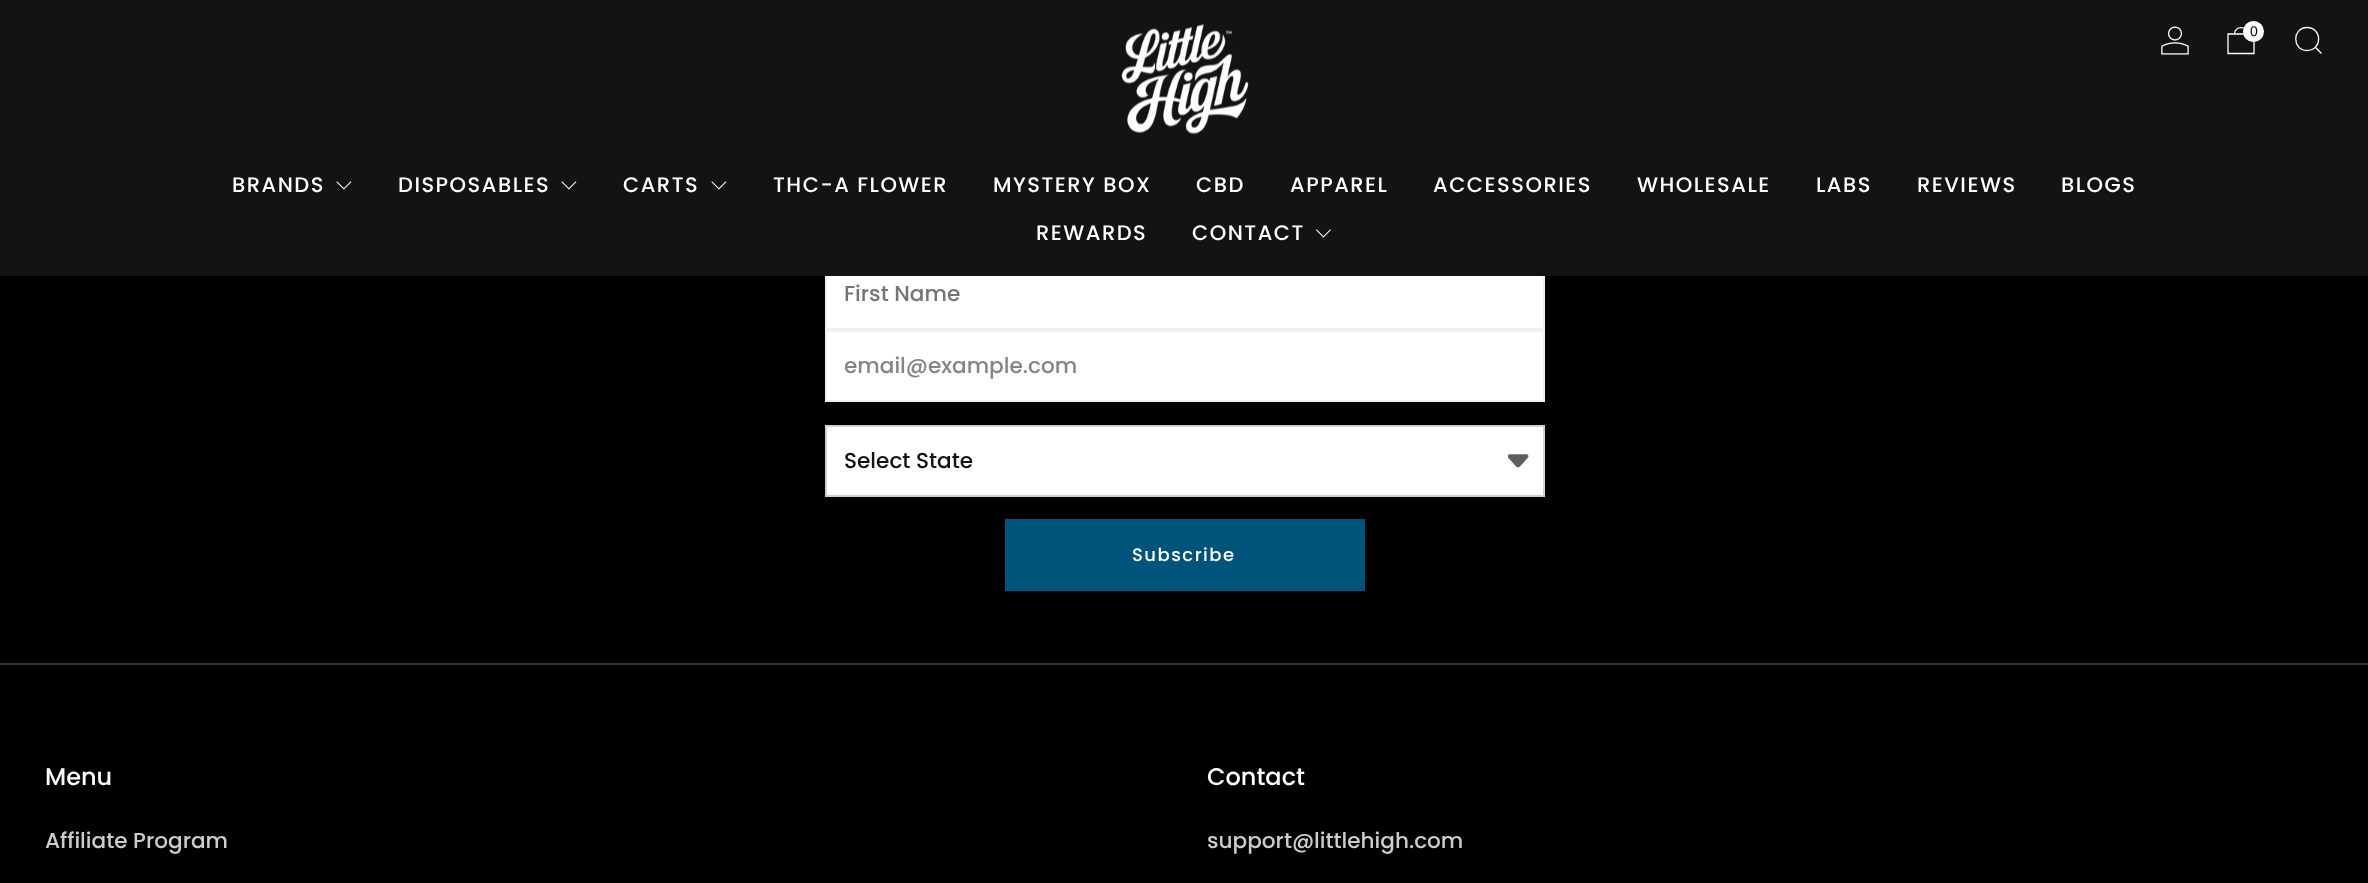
<svg xmlns="http://www.w3.org/2000/svg" width="2368" height="883" viewBox="0 0 2368 883">
  <defs>
    <clipPath id="clip1"><rect x="845" y="351" width="681" height="32"/></clipPath>
  </defs>
  <rect width="100%" height="100%" fill="rgb(0,0,0)"/>
  <rect x="827" y="276" width="716" height="52" fill="rgb(255,255,255)"/>
  <rect x="826" y="259" width="718" height="70" fill="none" stroke="rgb(240,240,240)" stroke-width="2"/>
  <rect x="0" y="0" width="2368" height="276" fill="rgb(19,19,19)"/>
  <image x="1121" y="24" width="128" height="111" href="pic1.png"/>
  <image x="2161" y="26" width="28" height="29" href="pic2.png"/>
  <path d="M2228 34H2254V53.5H2228ZM2247.5 34C2247.5 25.5 2234.5 25.5 2234.5 34" fill="none" stroke="rgb(255,255,255)" stroke-width="1.3"/>
  <circle cx="2253.5" cy="31.5" r="10.5" fill="rgb(255,255,255)"/>
  <text x="2250" y="36" font-family="Liberation Sans" font-size="14" fill="rgb(0,0,0)">0</text>
  <path d="M2307 50.5C2322.5 50.5 2322.5 27.5 2307 27.5C2292 27.5 2292 50.5 2307 50.5ZM2315.5 47.5L2321.5 53.5" fill="none" stroke="rgb(255,255,255)" stroke-width="1.3"/>
  <text x="232" y="192" font-family="Poppins" font-size="21" font-weight="500" letter-spacing="1.5" fill="rgb(255,255,255)">BRANDS</text>
  <image x="336" y="181" width="16" height="9" href="pic3.png"/>
  <text x="398" y="192" font-family="Poppins" font-size="21" font-weight="500" letter-spacing="1.5" fill="rgb(255,255,255)">DISPOSABLES</text>
  <image x="561" y="181" width="16" height="9" href="pic3.png"/>
  <text x="623" y="192" font-family="Poppins" font-size="21" font-weight="500" letter-spacing="1.5" fill="rgb(255,255,255)">CARTS</text>
  <image x="711" y="181" width="16" height="9" href="pic3.png"/>
  <g font-family="Poppins" font-size="21" font-weight="500" letter-spacing="1.5" fill="rgb(255,255,255)">
    <text x="773" y="192">THC-A FLOWER</text>
    <text x="993" y="192">MYSTERY BOX</text>
    <text x="1196" y="192">CBD</text>
    <text x="1290" y="192">APPAREL</text>
    <text x="1433" y="192">ACCESSORIES</text>
    <text x="1637" y="192">WHOLESALE</text>
    <text x="1816" y="192">LABS</text>
    <text x="1917" y="192">REVIEWS</text>
    <text x="2061" y="192">BLOGS</text>
    <text x="1036" y="240">REWARDS</text>
    <text x="1192" y="240">CONTACT</text>
  </g>
  <image x="1316" y="229" width="15" height="9" href="pic4.png"/>
  <text x="844" y="301" font-family="Poppins" font-size="21.6" font-weight="500" fill="rgb(117,117,117)">First Name</text>
  <rect x="826" y="331" width="718" height="70" fill="rgb(255,255,255)" stroke="rgb(240,240,240)" stroke-width="2"/>
  <g clip-path="url(#clip1)">
    <text x="844" y="373" font-family="Poppins" font-size="21.6" font-weight="500" fill="rgb(133,133,133)">email@example.com</text>
  </g>
  <rect x="827" y="427" width="716" height="68" fill="rgb(255,255,255)"/>
  <image x="1508" y="454" width="21" height="14" href="pic5.png"/>
  <rect x="826" y="426" width="718" height="70" fill="none" stroke="rgb(208,208,208)" stroke-width="2"/>
  <text x="844" y="468" font-family="Poppins" font-size="21.6" font-weight="500" fill="rgb(19,19,19)">Select State</text>
  <rect x="1005" y="519" width="360" height="72" fill="rgb(0,84,123)"/>
  <text x="1132" y="561" font-family="Poppins" font-size="18" font-weight="500" letter-spacing="1.5" fill="rgb(255,255,255)">Subscribe</text>
  <rect x="0" y="663" width="2368" height="2" fill="rgb(51,51,51)"/>
  <text x="45" y="785" font-family="Poppins" font-size="24" font-weight="500" fill="rgb(255,255,255)">Menu</text>
  <text x="45" y="848" font-family="Poppins" font-size="21.6" font-weight="500" fill="rgb(204,204,204)">Affiliate Program</text>
  <text x="1207" y="785" font-family="Poppins" font-size="24" font-weight="500" fill="rgb(255,255,255)">Contact</text>
  <text x="1207" y="848" font-family="Poppins" font-size="21.6" font-weight="500" fill="rgb(204,204,204)">support@littlehigh.com</text>
</svg>
